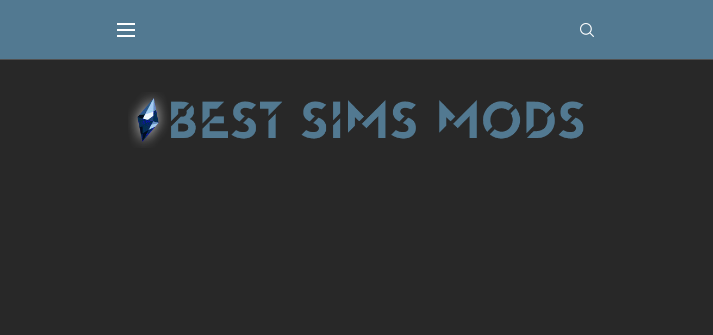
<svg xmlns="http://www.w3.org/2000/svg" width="713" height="335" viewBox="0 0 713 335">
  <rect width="100%" height="100%" fill="rgb(40,40,40)"/>
  <rect x="0" y="0" width="713" height="59" fill="rgb(82,121,145)"/>
  <rect x="0" y="59" width="713" height="1" fill="rgb(81,81,81)"/>
  <rect x="117" y="23" width="18" height="2" fill="rgb(255,255,255)"/>
  <rect x="117" y="29" width="18" height="2" fill="rgb(255,255,255)"/>
  <rect x="117" y="35" width="18" height="2" fill="rgb(255,255,255)"/>
  <image x="580" y="23" width="14" height="14" href="pic1.png"/>
  <image x="128" y="92" width="456" height="56" href="pic2.png"/>
</svg>
